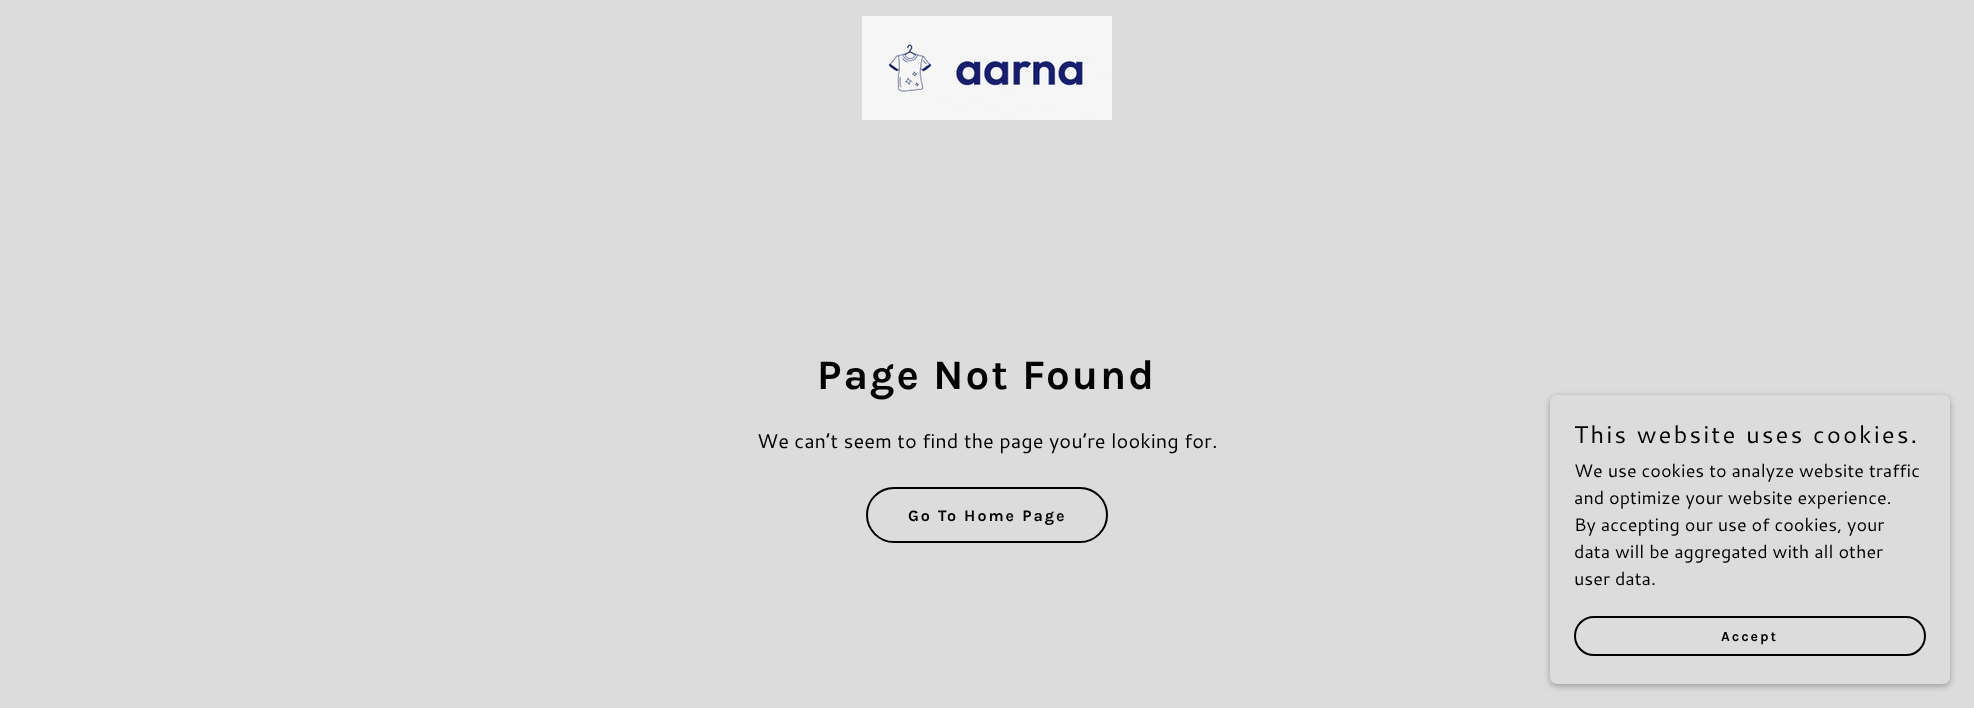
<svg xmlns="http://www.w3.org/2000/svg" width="1974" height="708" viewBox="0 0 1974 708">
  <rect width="100%" height="100%" fill="rgb(220,220,220)"/>
  <image x="862" y="16" width="250" height="104" href="pic1.png"/>
  <text x="817" y="389" font-family="Karla" font-size="42" font-weight="bold" letter-spacing="2" fill="rgb(0,0,0)">Page Not Found</text>
  <text x="757" y="448" font-family="Cantarell" font-size="20" fill="rgb(0,0,0)">We can’t seem to find the page you’re looking for.</text>
  <rect x="867" y="488" width="240" height="54" rx="27" fill="none" stroke="rgb(0,0,0)" stroke-width="2"/>
  <text x="908" y="521" font-family="Karla" font-size="16" font-weight="bold" letter-spacing="2" fill="rgb(0,0,0)">Go To Home Page</text>
  <rect x="1550" y="397" width="400" height="289" rx="7" fill="rgba(0,0,0,0.3)" filter="blur(3px)"/>
  <rect x="1550" y="395" width="400" height="289" rx="7" fill="rgb(220,220,220)"/>
  <text x="1574" y="443" font-family="Cantarell" font-size="24" letter-spacing="2" fill="rgb(0,0,0)">This website uses cookies.</text>
  <g font-family="Cantarell" font-size="18" fill="rgb(0,0,0)">
    <text>
      <tspan x="1574" y="477">We use cookies to analyze website traffic</tspan>
      <tspan x="1574" y="504">and optimize your website experience.</tspan>
      <tspan x="1574" y="531">By accepting our use of cookies, your</tspan>
      <tspan x="1574" y="558">data will be aggregated with all other</tspan>
      <tspan x="1574" y="585">user data.</tspan>
    </text>
  </g>
  <rect x="1575" y="617" width="350" height="38" rx="19" fill="none" stroke="rgb(0,0,0)" stroke-width="2"/>
  <text x="1721" y="641" font-family="Karla" font-size="14" font-weight="bold" letter-spacing="2" fill="rgb(0,0,0)">Accept</text>
</svg>
